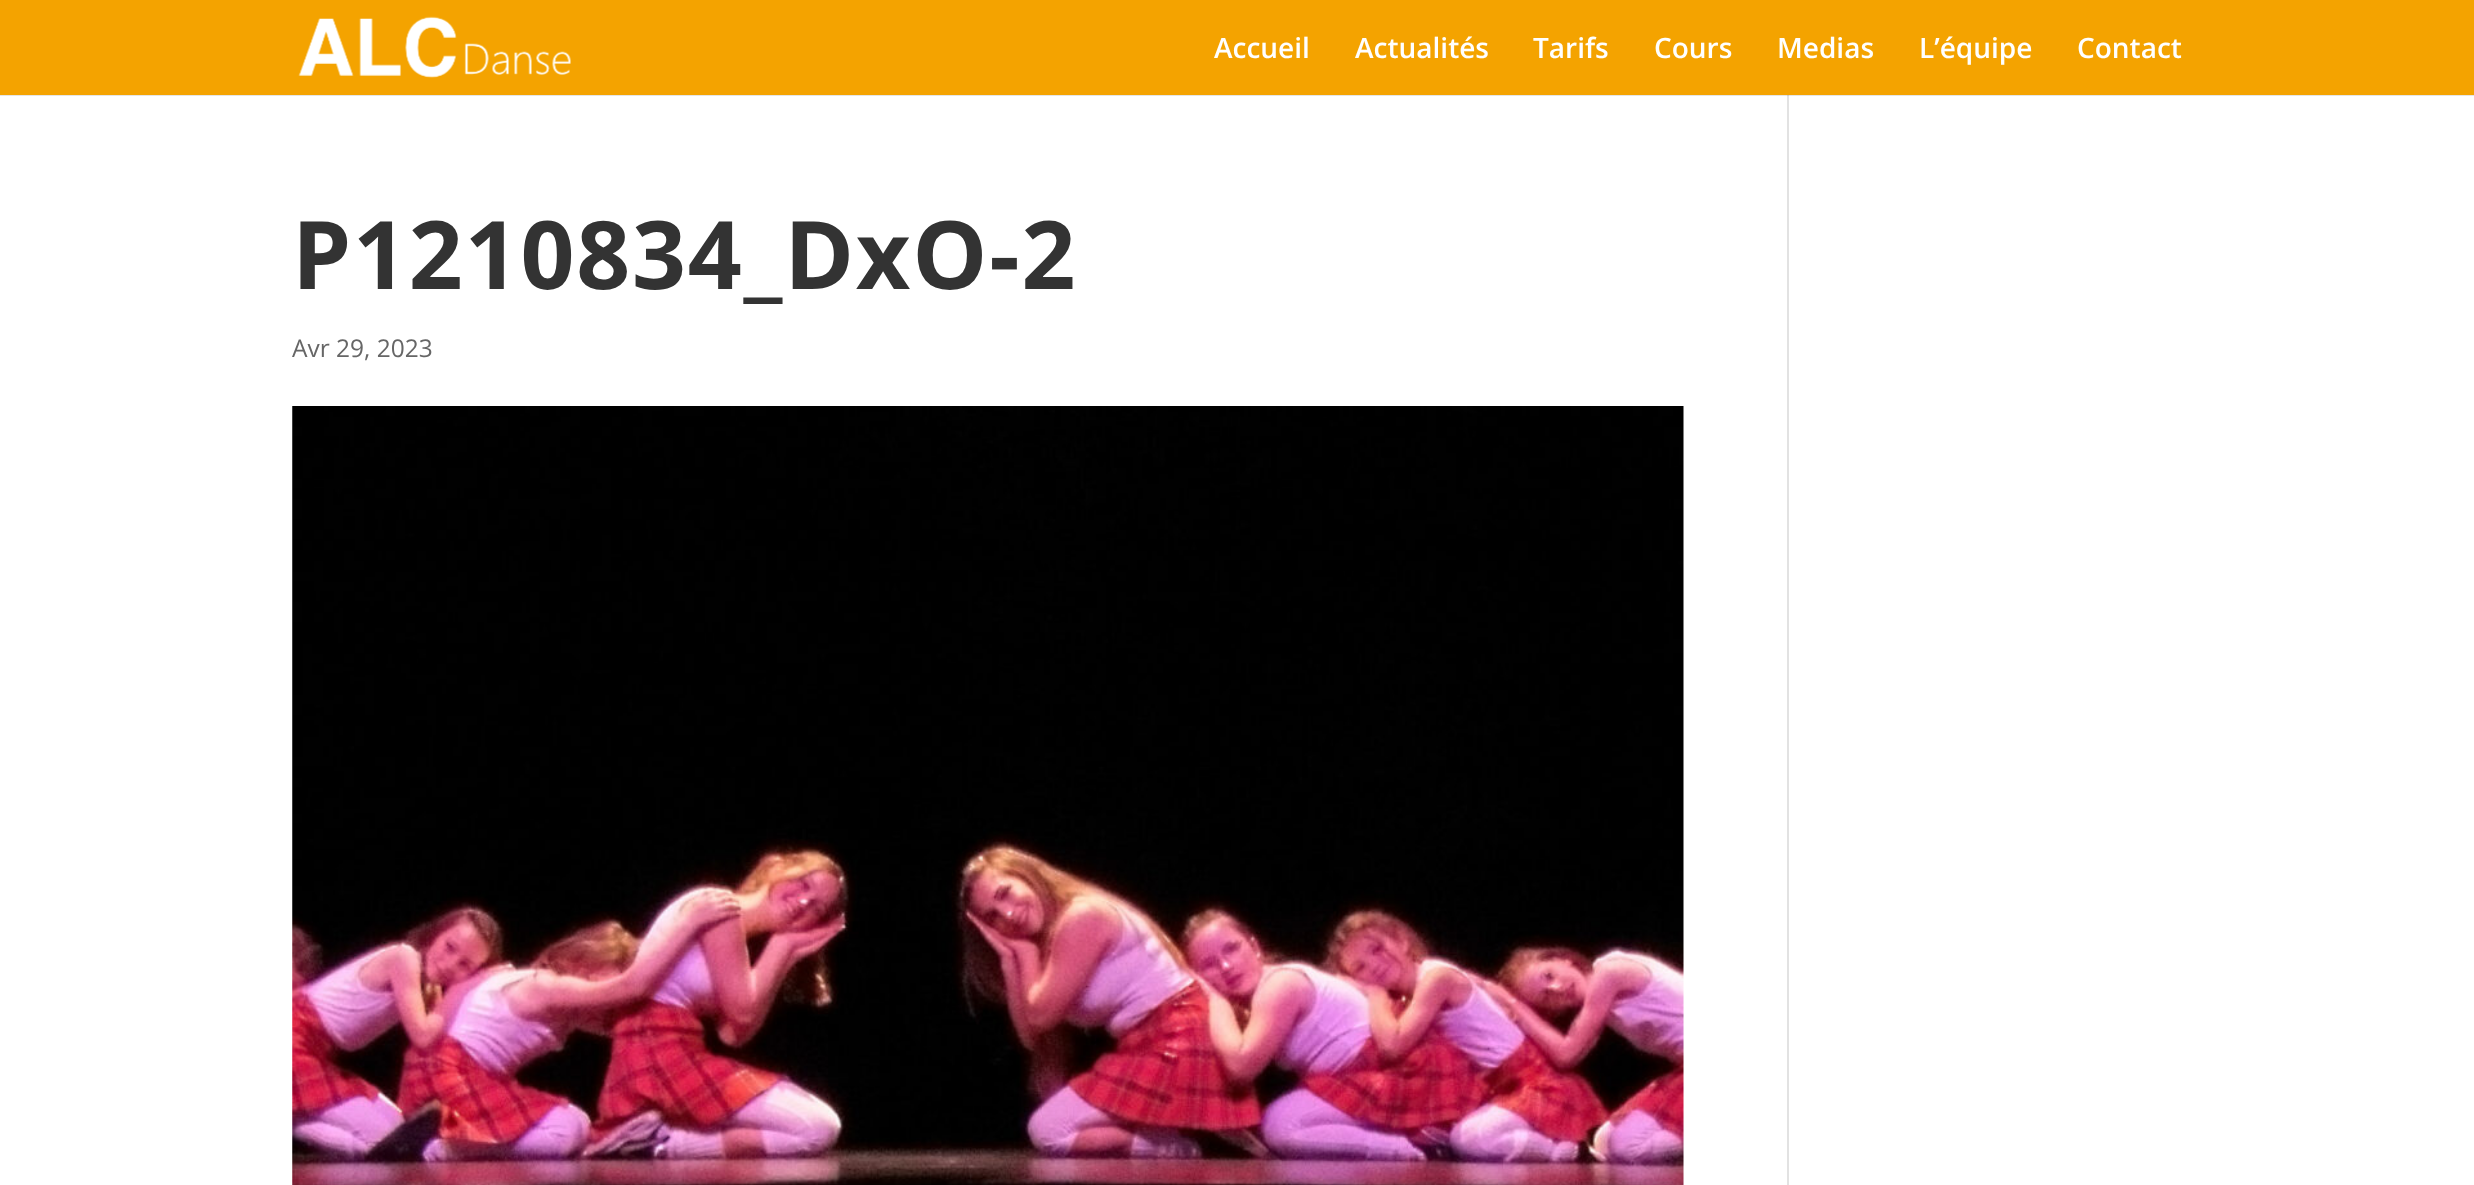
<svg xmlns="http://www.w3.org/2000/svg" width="2474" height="1185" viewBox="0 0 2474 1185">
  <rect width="100%" height="100%" fill="rgb(255,255,255)"/>
  <rect x="1787" y="95" width="2" height="1090" fill="rgb(226,226,226)"/>
  <path d="M0 94V96H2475V2H2474V94Z" fill="rgba(0,0,0,0.1)"/>
  <rect x="0" y="0" width="2474" height="95" fill="rgb(244,163,0)"/>
  <image x="298" y="16" width="273" height="62" href="pic1.png"/>
  <g font-family="Open Sans" font-size="28" font-weight="600" fill="rgb(255,255,255)">
    <text x="1214" y="58">Accueil</text>
    <text x="1355" y="58">Actualités</text>
    <text x="1533" y="58">Tarifs</text>
    <text x="1654" y="58">Cours</text>
    <text x="1777" y="58">Medias</text>
    <text x="1919" y="58">L’équipe</text>
    <text x="2077" y="58">Contact</text>
  </g>
  <text x="292" y="289" font-family="Open Sans" font-size="94.5" font-weight="bold" letter-spacing="1.75" fill="rgb(51,51,51)">P1210834_DxO-2</text>
  <text x="292" y="357" font-family="Open Sans" font-size="24.5" fill="rgb(102,102,102)">Avr 29, 2023</text>
  <image x="292" y="406" width="1392" height="779" href="pic2.png"/>
</svg>
